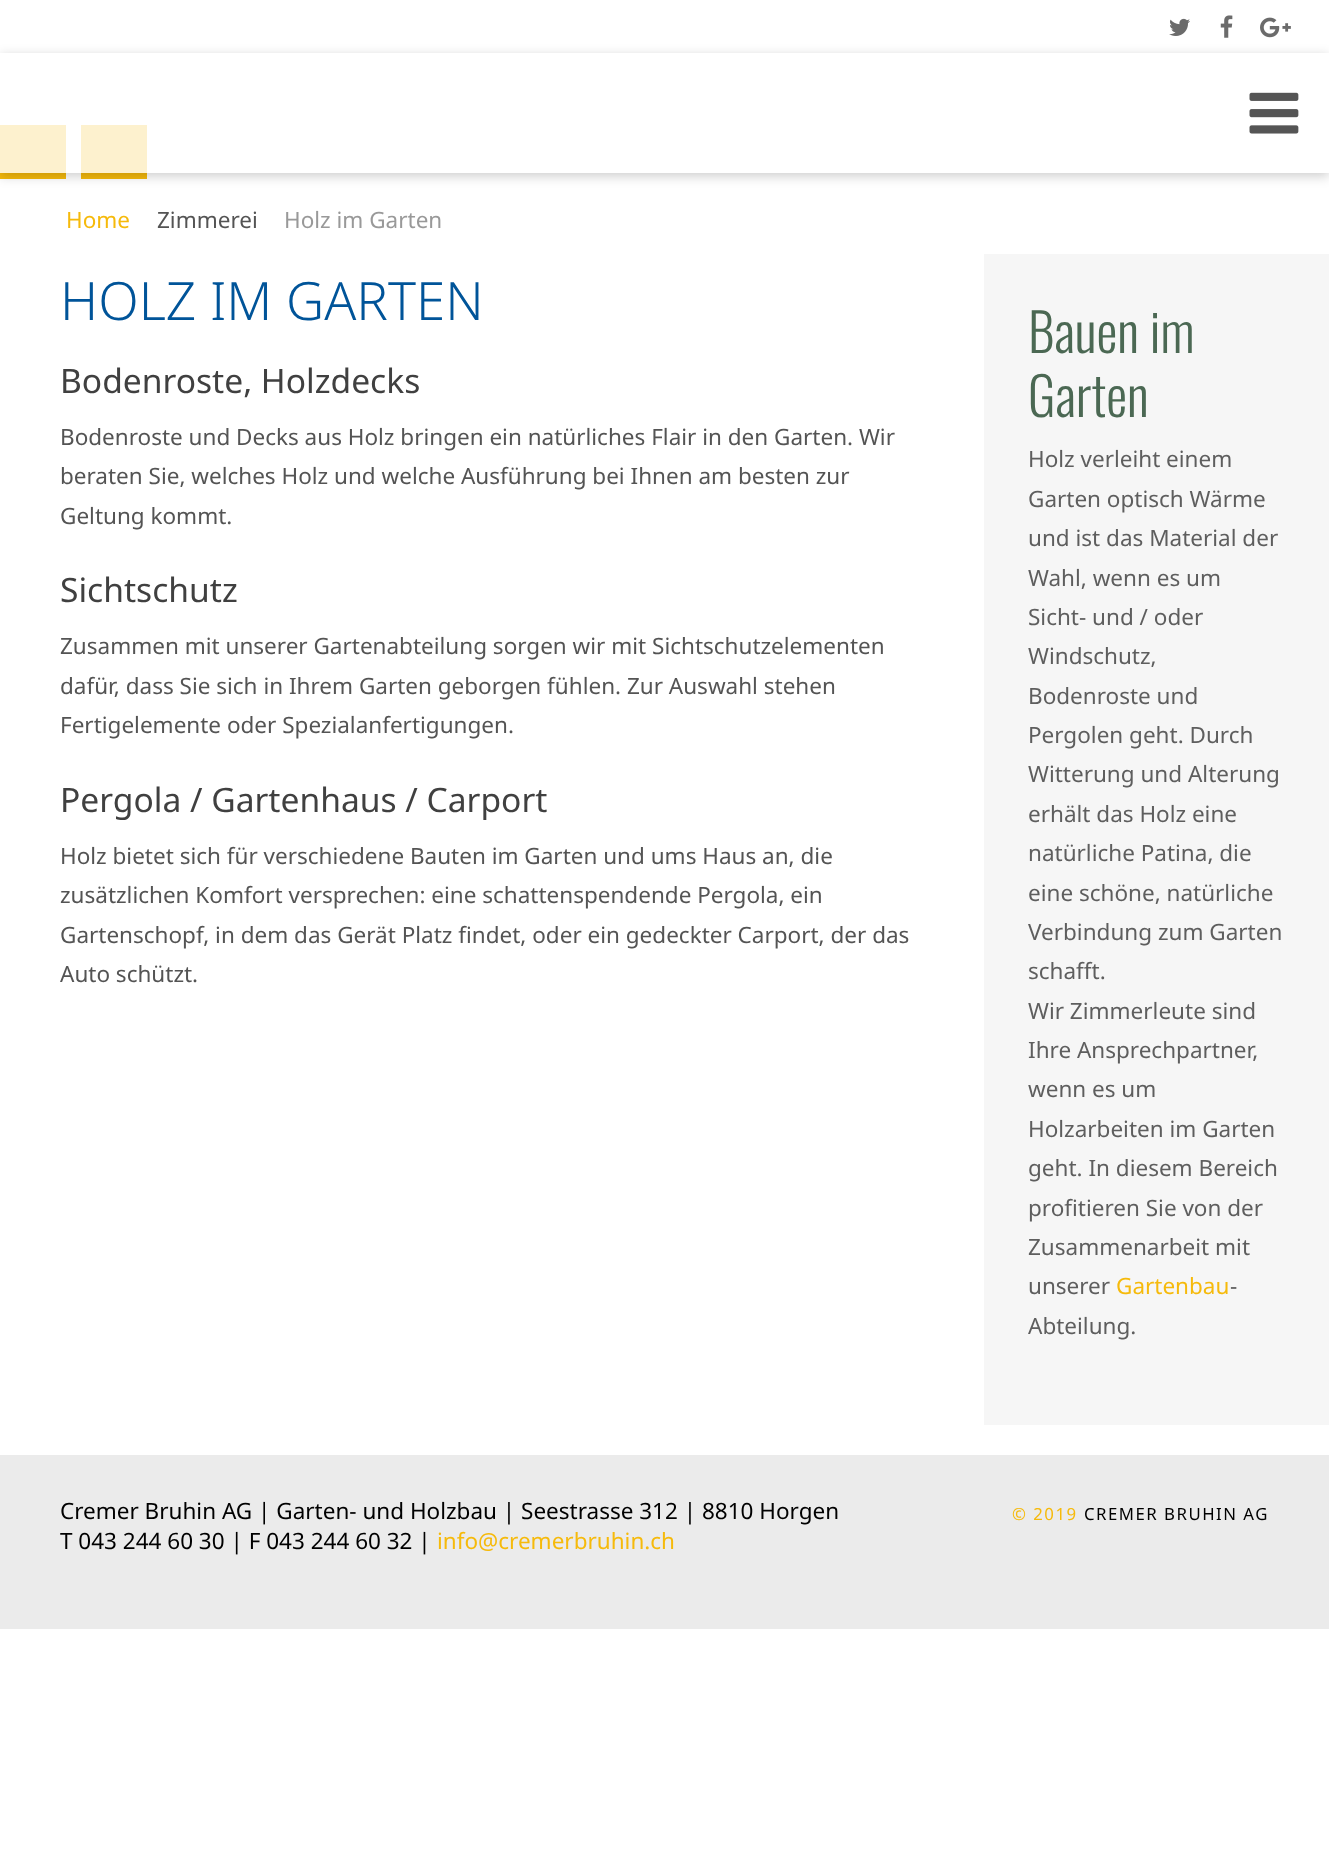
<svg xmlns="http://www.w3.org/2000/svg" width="1329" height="1873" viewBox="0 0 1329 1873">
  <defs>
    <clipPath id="clip1"><path d="M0 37H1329V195H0ZM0 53H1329V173H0Z" clip-rule="evenodd"/></clipPath>
  </defs>
  <rect width="100%" height="100%" fill="rgb(255,255,255)"/>
  <image x="1169" y="18" width="21" height="18" href="pic1.png"/>
  <image x="1220" y="15" width="13" height="23" href="pic2.png"/>
  <image x="1260" y="17" width="31" height="21" href="pic3.png"/>
  <rect x="0" y="125" width="66" height="54" fill="rgb(246,186,11)"/>
  <rect x="81" y="125" width="66" height="54" fill="rgb(246,186,11)"/>
  <g clip-path="url(#clip1)">
    <rect x="0" y="56" width="1329" height="120" fill="rgba(0,0,0,0.2)" filter="blur(6px)"/>
  </g>
  <rect x="0" y="125" width="1329" height="48" fill="rgba(255,255,255,0.8)"/>
  <image x="1249" y="92" width="50" height="42" href="pic4.png"/>
  <text x="66" y="228" font-family="Noto Sans" font-size="22.5" fill="rgb(246,186,11)">Home</text>
  <text x="157" y="228" font-family="Noto Sans" font-size="22.5" fill="rgb(84,84,84)">Zimmerei</text>
  <text x="284" y="228" font-family="Noto Sans" font-size="22.5" fill="rgb(153,153,153)">Holz im Garten</text>
  <text x="60" y="320" font-family="Noto Sans" font-size="52.75" font-weight="300" fill="rgb(0,84,153)">HOLZ IM GARTEN</text>
  <text x="60" y="393" font-family="Noto Sans" font-size="33.6" fill="rgb(64,64,64)">Bodenroste, Holzdecks</text>
  <g font-family="Noto Sans" font-size="22.5" fill="rgb(84,84,84)">
    <text>
      <tspan x="60" y="445">Bodenroste und Decks aus Holz bringen ein natürliches Flair in den Garten. Wir</tspan>
      <tspan x="60" y="484">beraten Sie, welches Holz und welche Ausführung bei Ihnen am besten zur</tspan>
      <tspan x="60" y="524">Geltung kommt.</tspan>
    </text>
  </g>
  <text x="60" y="602" font-family="Noto Sans" font-size="33.6" fill="rgb(64,64,64)">Sichtschutz</text>
  <g font-family="Noto Sans" font-size="22.5" fill="rgb(84,84,84)">
    <text>
      <tspan x="60" y="654">Zusammen mit unserer Gartenabteilung sorgen wir mit Sichtschutzelementen</tspan>
      <tspan x="60" y="694">dafür, dass Sie sich in Ihrem Garten geborgen fühlen. Zur Auswahl stehen</tspan>
      <tspan x="60" y="733">Fertigelemente oder Spezialanfertigungen.</tspan>
    </text>
  </g>
  <text x="60" y="812" font-family="Noto Sans" font-size="33.6" fill="rgb(64,64,64)">Pergola / Gartenhaus / Carport</text>
  <g font-family="Noto Sans" font-size="22.5" fill="rgb(84,84,84)">
    <text>
      <tspan x="60" y="864">Holz bietet sich für verschiedene Bauten im Garten und ums Haus an, die</tspan>
      <tspan x="60" y="903">zusätzlichen Komfort versprechen: eine schattenspendende Pergola, ein</tspan>
      <tspan x="60" y="943">Gartenschopf, in dem das Gerät Platz findet, oder ein gedeckter Carport, der das</tspan>
      <tspan x="60" y="982">Auto schützt.</tspan>
    </text>
  </g>
  <rect x="984" y="254" width="345" height="1171" fill="rgb(246,246,246)"/>
  <g font-family="Oswald" font-size="52.75" font-weight="300" fill="rgb(75,104,83)">
    <text>
      <tspan x="1028" y="353">Bauen im</tspan>
      <tspan x="1028" y="417">Garten</tspan>
    </text>
  </g>
  <g font-family="Noto Sans" font-size="22.5" fill="rgb(94,94,94)">
    <text>
      <tspan x="1028" y="467">Holz verleiht einem</tspan>
      <tspan x="1028" y="507">Garten optisch Wärme</tspan>
      <tspan x="1028" y="546">und ist das Material der</tspan>
      <tspan x="1028" y="586">Wahl, wenn es um</tspan>
      <tspan x="1028" y="625">Sicht- und / oder</tspan>
      <tspan x="1028" y="664">Windschutz,</tspan>
      <tspan x="1028" y="704">Bodenroste und</tspan>
      <tspan x="1028" y="743">Pergolen geht. Durch</tspan>
      <tspan x="1028" y="782">Witterung und Alterung</tspan>
      <tspan x="1028" y="822">erhält das Holz eine</tspan>
      <tspan x="1028" y="861">natürliche Patina, die</tspan>
      <tspan x="1028" y="901">eine schöne, natürliche</tspan>
      <tspan x="1028" y="940">Verbindung zum Garten</tspan>
      <tspan x="1028" y="979">schafft.</tspan>
      <tspan x="1028" y="1019">Wir Zimmerleute sind</tspan>
      <tspan x="1028" y="1058">Ihre Ansprechpartner,</tspan>
      <tspan x="1028" y="1097">wenn es um</tspan>
      <tspan x="1028" y="1137">Holzarbeiten im Garten</tspan>
      <tspan x="1028" y="1176">geht. In diesem Bereich</tspan>
      <tspan x="1028" y="1216">profitieren Sie von der</tspan>
      <tspan x="1028" y="1255">Zusammenarbeit mit</tspan>
      <tspan x="1028" y="1294">unserer</tspan>
    </text>
  </g>
  <text x="1116" y="1294" font-family="Noto Sans" font-size="22.5" fill="rgb(246,186,11)">Gartenbau</text>
  <g font-family="Noto Sans" font-size="22.5" fill="rgb(94,94,94)">
    <text x="1230" y="1294">-</text>
    <text x="1028" y="1334">Abteilung.</text>
  </g>
  <rect x="0" y="1455" width="1329" height="174" fill="rgb(235,235,235)"/>
  <g font-family="Noto Sans" font-size="22.5" fill="rgb(0,0,0)">
    <text>
      <tspan x="60" y="1519">Cremer Bruhin AG | Garten- und Holzbau | Seestrasse 312 | 8810 Horgen</tspan>
      <tspan x="60" y="1549">T 043 244 60 30 | F 043 244 60 32 |</tspan>
    </text>
  </g>
  <text x="437" y="1549" font-family="Noto Sans" font-size="22.5" fill="rgb(246,186,11)">info@cremerbruhin.ch</text>
  <text x="1012" y="1520" font-family="Noto Sans" font-size="16.75" letter-spacing="1.5" fill="rgb(246,186,11)">© 2019</text>
  <text x="1084" y="1520" font-family="Noto Sans" font-size="16.75" letter-spacing="1.5" fill="rgb(0,0,0)">CREMER BRUHIN AG</text>
</svg>
